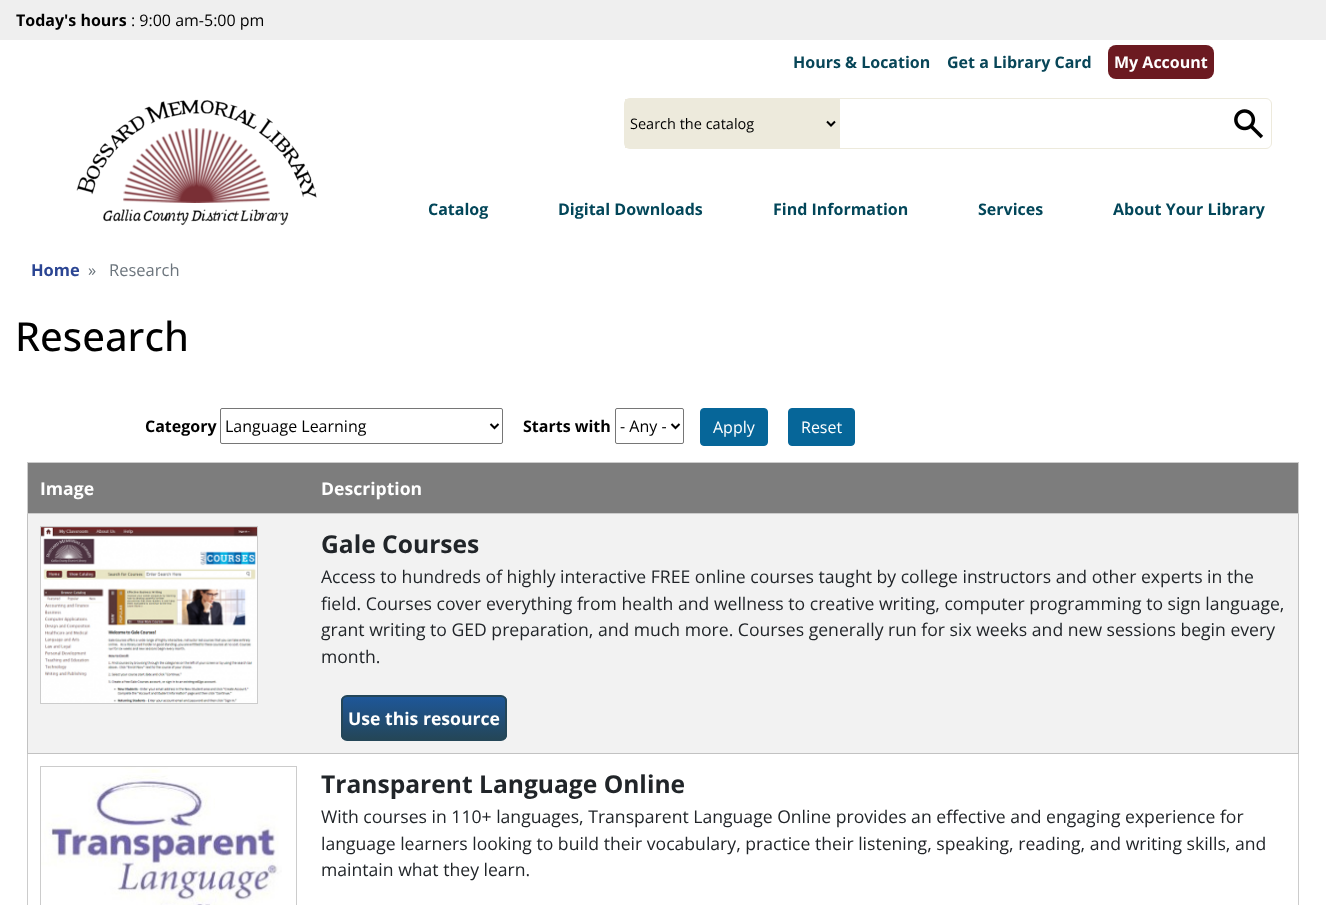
<svg xmlns="http://www.w3.org/2000/svg" width="1326" height="905" viewBox="0 0 1326 905">
  <defs>
    <clipPath id="clip1"><rect x="341" y="695" width="166" height="46" rx="6"/></clipPath>
    <linearGradient id="g1" gradientUnits="userSpaceOnUse" x1="424" y1="697" x2="424" y2="739"><stop offset="0" stop-color="rgb(30,87,153)"/><stop offset="1" stop-color="rgb(36,70,88)"/></linearGradient>
  </defs>
  <rect width="100%" height="100%" fill="rgb(255,255,255)"/>
  <rect x="0" y="0" width="1326" height="40" fill="rgb(239,239,239)"/>
  <text x="16" y="26" font-family="Open Sans" font-size="16" font-weight="bold" fill="rgb(0,0,0)">Today's hours</text>
  <text x="131" y="26" font-family="Open Sans" font-size="16" fill="rgb(0,0,0)">: 9:00 am-5:00 pm</text>
  <g font-family="Open Sans" font-size="16" font-weight="bold" fill="rgb(8,70,88)">
    <text x="793" y="68">Hours &amp; Location</text>
    <text x="947" y="68">Get a Library Card</text>
  </g>
  <rect x="1108" y="45" width="106" height="34" rx="8" fill="rgb(108,26,33)"/>
  <text x="1114" y="68" font-family="Open Sans" font-size="16" font-weight="bold" fill="rgb(255,255,255)">My Account</text>
  <image x="76" y="99" width="241" height="127" href="pic1.png"/>
  <rect x="624.5" y="98.5" width="647" height="50" rx="5.5" fill="none" stroke="rgb(237,234,220)"/>
  <rect x="625" y="99" width="215" height="49" fill="rgb(237,234,220)"/>
  <path d="M827 121.5L831 125.5L835 121.5" fill="none" stroke="rgb(0,0,0)" stroke-width="2"/>
  <text x="630" y="129" font-family="Open Sans" font-size="14.5" fill="rgb(0,0,0)">Search the catalog</text>
  <image x="1234" y="109" width="30" height="30" href="pic2.png"/>
  <g font-family="Open Sans" font-size="16" font-weight="bold" fill="rgb(2,70,89)">
    <text x="428" y="215">Catalog</text>
    <text x="558" y="215">Digital Downloads</text>
    <text x="773" y="215">Find Information</text>
    <text x="978" y="215">Services</text>
    <text x="1113" y="215">About Your Library</text>
  </g>
  <rect x="28" y="514" width="1270" height="239" fill="rgb(242,242,242)"/>
  <text x="31" y="276" font-family="Open Sans" font-size="16.5" font-weight="bold" fill="rgb(43,69,147)">Home</text>
  <g font-family="Open Sans" font-size="16.5" fill="rgb(108,117,125)">
    <text x="88" y="276">»</text>
    <text x="109" y="276">Research</text>
  </g>
  <text x="15" y="351" font-family="Open Sans" font-size="40" font-weight="500" fill="rgb(0,0,0)">Research</text>
  <text x="145" y="432" font-family="Open Sans" font-size="16" font-weight="bold" fill="rgb(0,0,0)">Category</text>
  <rect x="220.5" y="408.5" width="282" height="35" rx="1.5" fill="none" stroke="rgb(118,118,118)"/>
  <path d="M490.5 424L494.5 428L498.5 424" fill="none" stroke="rgb(0,0,0)" stroke-width="2"/>
  <text x="225" y="432" font-family="Open Sans" font-size="16" fill="rgb(0,0,0)">Language Learning</text>
  <text x="523" y="432" font-family="Open Sans" font-size="16" font-weight="bold" fill="rgb(0,0,0)">Starts with</text>
  <rect x="615.5" y="408.5" width="68" height="35" rx="1.5" fill="none" stroke="rgb(118,118,118)"/>
  <path d="M671.5 424L675.5 428L679.5 424" fill="none" stroke="rgb(0,0,0)" stroke-width="2"/>
  <text x="620" y="432" font-family="Open Sans" font-size="16" fill="rgb(0,0,0)">- Any -</text>
  <rect x="700.5" y="408.5" width="67" height="37" rx="3.5" fill="rgb(6,102,153)" stroke="rgb(6,102,153)"/>
  <text x="713" y="433" font-family="Open Sans" font-size="16" fill="rgb(255,255,255)">Apply</text>
  <rect x="788.5" y="408.5" width="66" height="37" rx="3.5" fill="rgb(6,102,153)" stroke="rgb(6,102,153)"/>
  <text x="801" y="433" font-family="Open Sans" font-size="16" fill="rgb(255,255,255)">Reset</text>
  <rect x="27" y="462" width="1272" height="1" fill="rgb(204,204,204)"/>
  <rect x="27" y="513" width="1272" height="1" fill="rgb(204,204,204)"/>
  <rect x="1298" y="462" width="1" height="52" fill="rgb(204,204,204)"/>
  <rect x="27" y="462" width="1" height="52" fill="rgb(204,204,204)"/>
  <rect x="28" y="463" width="1270" height="50" fill="rgb(125,125,125)"/>
  <g font-family="Open Sans" font-size="17.6" font-weight="bold" fill="rgb(255,255,255)">
    <text x="40" y="495">Image</text>
    <text x="321" y="495">Description</text>
  </g>
  <rect x="27" y="753" width="1272" height="1" fill="rgb(194,194,194)"/>
  <rect x="1298" y="753" width="1" height="152" fill="rgb(204,204,204)"/>
  <rect x="1298" y="514" width="1" height="240" fill="rgb(194,194,194)"/>
  <rect x="27" y="753" width="1" height="152" fill="rgb(204,204,204)"/>
  <rect x="27" y="514" width="1" height="240" fill="rgb(194,194,194)"/>
  <rect x="40.5" y="526.5" width="217" height="177" fill="none" stroke="rgb(204,204,204)"/>
  <image x="41" y="527" width="216" height="176" href="pic3.png"/>
  <text x="321" y="553" font-family="Open Sans" font-size="24.6" font-weight="bold" fill="rgb(33,37,41)">Gale Courses</text>
  <g font-family="Open Sans" font-size="17.6" fill="rgb(33,37,41)">
    <text>
      <tspan x="321" y="583">Access to hundreds of highly interactive FREE online courses taught by college instructors and other experts in the</tspan>
      <tspan x="321" y="610">field. Courses cover everything from health and wellness to creative writing, computer programming to sign language,</tspan>
      <tspan x="321" y="636">grant writing to GED preparation, and much more. Courses generally run for six weeks and new sessions begin every</tspan>
      <tspan x="321" y="663">month.</tspan>
    </text>
  </g>
  <g clip-path="url(#clip1)">
    <rect x="341" y="697" width="166" height="42" fill="url(#g1)"/>
  </g>
  <rect x="342" y="696" width="164" height="44" rx="5" fill="none" stroke="rgb(36,70,88)" stroke-width="2"/>
  <text x="348" y="725" font-family="Open Sans" font-size="17.6" font-weight="bold" fill="rgb(255,255,255)">Use this resource</text>
  <rect x="40.5" y="766.5" width="256" height="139" fill="none" stroke="rgb(204,204,204)"/>
  <image x="41" y="767" width="241" height="138" href="pic4.png"/>
  <text x="321" y="793" font-family="Open Sans" font-size="24.6" font-weight="bold" fill="rgb(33,37,41)">Transparent Language Online</text>
  <g font-family="Open Sans" font-size="17.6" fill="rgb(33,37,41)">
    <text>
      <tspan x="321" y="823">With courses in 110+ languages, Transparent Language Online provides an effective and engaging experience for</tspan>
      <tspan x="321" y="850">language learners looking to build their vocabulary, practice their listening, speaking, reading, and writing skills, and</tspan>
      <tspan x="321" y="876">maintain what they learn.</tspan>
    </text>
  </g>
</svg>
